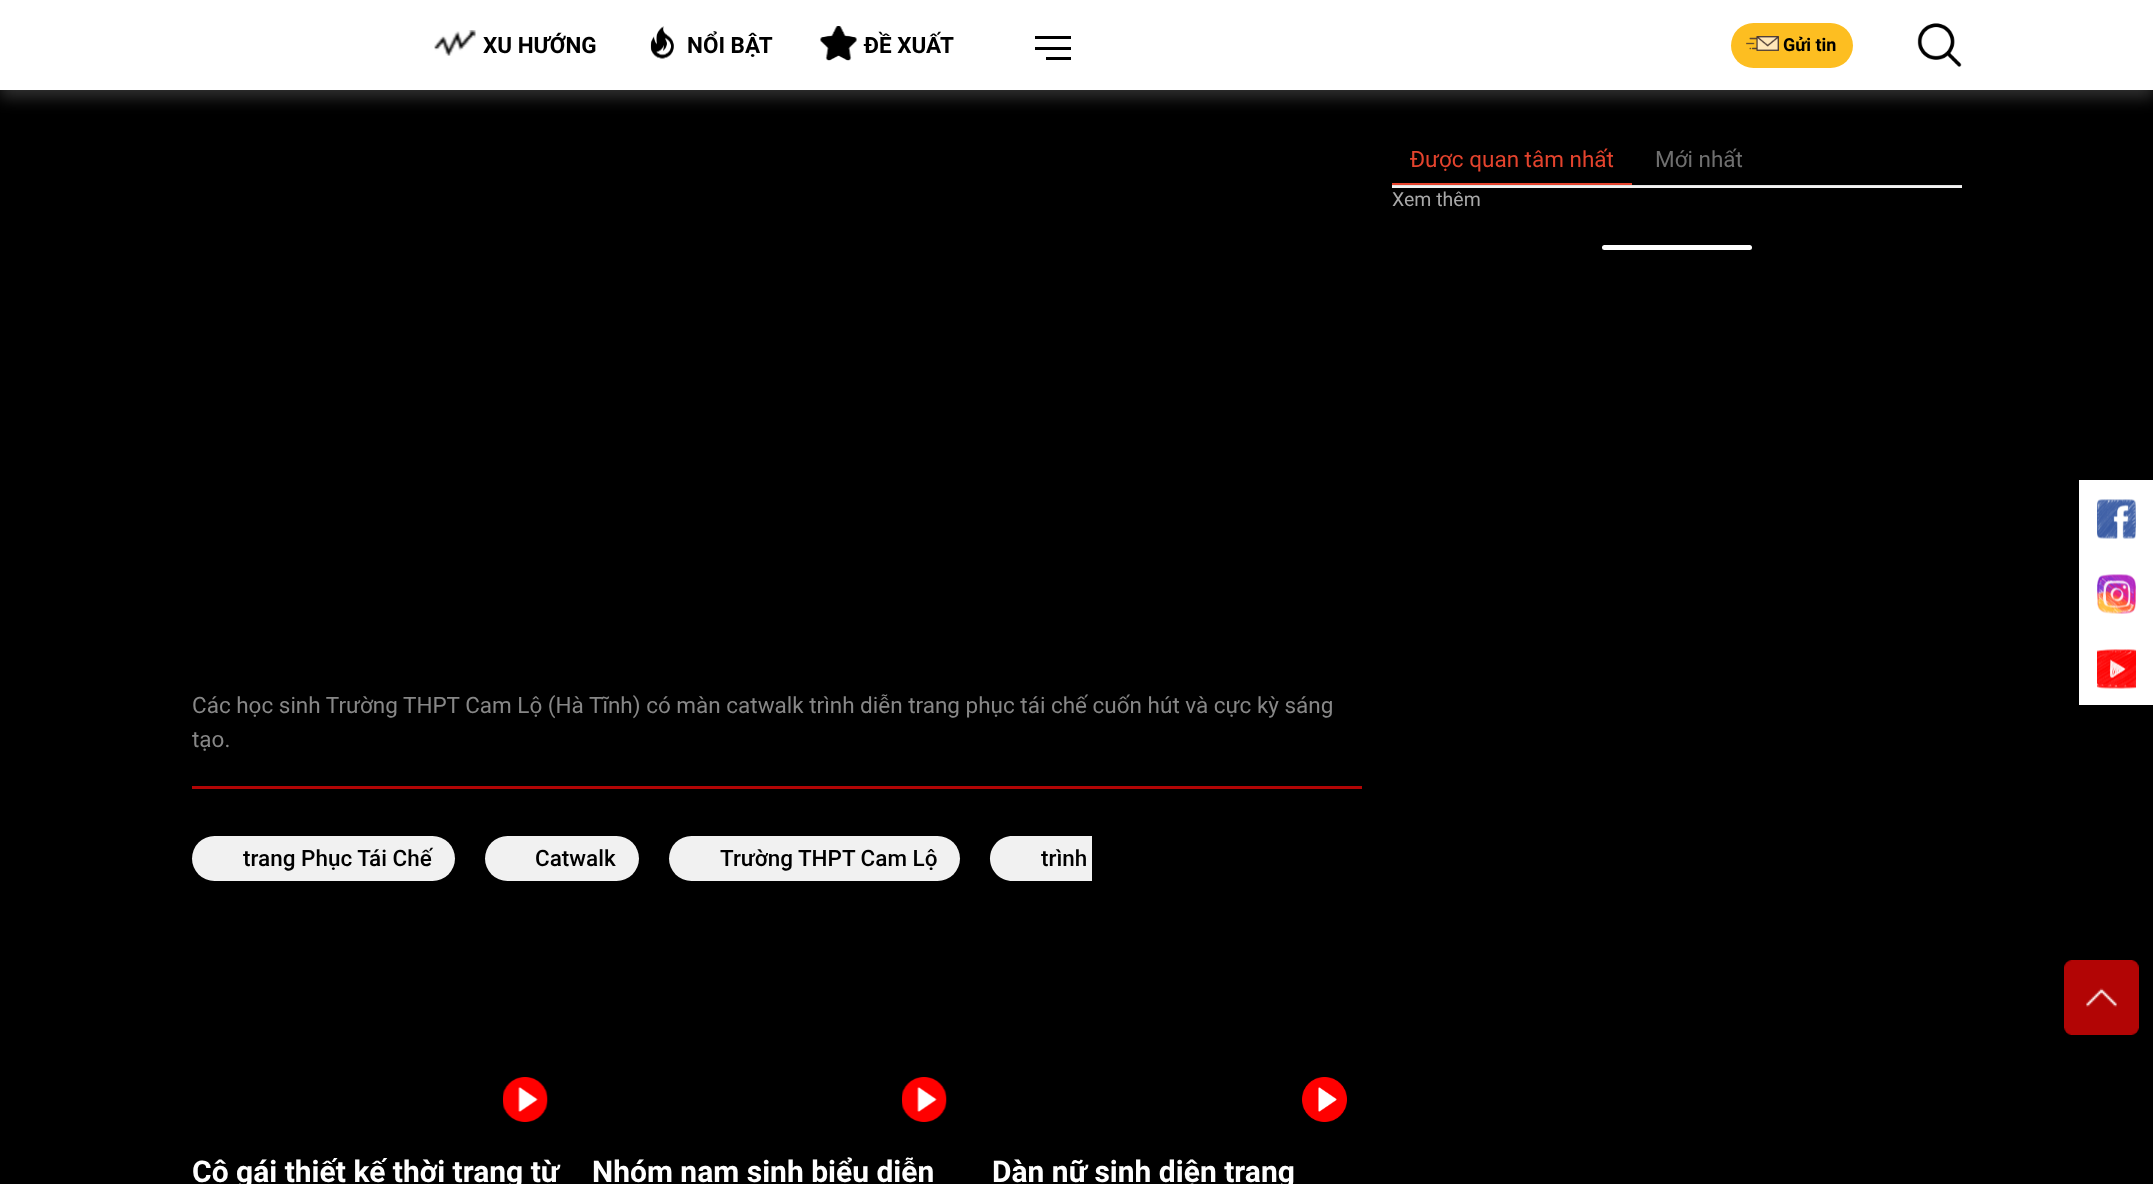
<svg xmlns="http://www.w3.org/2000/svg" width="2153" height="1184" viewBox="0 0 2153 1184">
  <rect width="100%" height="100%" fill="rgb(0,0,0)"/>
  <rect x="0" y="8" width="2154" height="90" fill="rgba(186,186,186,0.25)" filter="blur(7.5px)"/>
  <rect x="0" y="0" width="2153" height="90" fill="rgb(255,255,255)"/>
  <image x="434" y="30" width="42" height="26" href="pic1.png"/>
  <text x="483" y="53" font-family="Roboto" font-size="22.5" font-weight="bold" fill="rgb(0,0,0)">XU HƯỚNG</text>
  <image x="650" y="26" width="24" height="33" href="pic2.png"/>
  <text x="687" y="53" font-family="Roboto" font-size="22.5" font-weight="bold" fill="rgb(0,0,0)">NỔI BẬT</text>
  <image x="820" y="26" width="37" height="35" href="pic3.png"/>
  <text x="864" y="53" font-family="Roboto" font-size="22.5" font-weight="bold" fill="rgb(0,0,0)">ĐỀ XUẤT</text>
  <rect x="1035" y="36" width="36" height="3" fill="rgb(0,0,0)"/>
  <rect x="1035" y="47" width="36" height="3" fill="rgb(0,0,0)"/>
  <rect x="1046" y="57" width="25" height="3" fill="rgb(0,0,0)"/>
  <rect x="1731" y="23" width="122" height="45" rx="22.5" fill="rgb(253,190,33)"/>
  <image x="1746" y="36" width="33" height="15" href="pic4.png"/>
  <text x="1783" y="51" font-family="Roboto" font-size="18" font-weight="bold" fill="rgb(0,0,0)">Gửi tin</text>
  <image x="1917" y="23" width="45" height="44" href="pic5.png"/>
  <rect x="1392" y="185" width="570" height="1" fill="rgb(226,226,226)"/>
  <text x="1410" y="167" font-family="Roboto" font-size="22.5" fill="rgb(228,67,45)">Được quan tâm nhất</text>
  <rect x="1392" y="183" width="240" height="2" fill="rgb(228,67,45)"/>
  <text x="1655" y="167" font-family="Roboto" font-size="22.5" fill="rgb(111,111,111)">Mới nhất</text>
  <rect x="1392" y="186" width="570" height="2" fill="rgb(242,242,242)"/>
  <text x="1392" y="206" font-family="Roboto" font-size="19.5" fill="rgb(168,168,168)">Xem thêm</text>
  <rect x="1602" y="245" width="150" height="5" rx="2.5" fill="rgb(254,254,254)"/>
  <rect x="192" y="786" width="1170" height="3" fill="rgb(178,5,5)"/>
  <g font-family="Roboto" font-size="22.5" fill="rgb(135,135,135)">
    <text>
      <tspan x="192" y="713">Các học sinh Trường THPT Cam Lộ (Hà Tĩnh) có màn catwalk trình diễn trang phục tái chế cuốn hút và cực kỳ sáng</tspan>
      <tspan x="192" y="747">tạo.</tspan>
    </text>
  </g>
  <rect x="192" y="836" width="263" height="45" rx="22.5" fill="rgb(241,241,241)"/>
  <text x="243" y="866" font-family="Roboto" font-size="22.5" font-weight="500" fill="rgb(0,0,0)">trang Phục Tái Chế</text>
  <rect x="485" y="836" width="154" height="45" rx="22.5" fill="rgb(241,241,241)"/>
  <text x="535" y="866" font-family="Roboto" font-size="22.5" font-weight="500" fill="rgb(0,0,0)">Catwalk</text>
  <rect x="669" y="836" width="291" height="45" rx="22.5" fill="rgb(241,241,241)"/>
  <text x="720" y="866" font-family="Roboto" font-size="22.5" font-weight="500" fill="rgb(0,0,0)">Trường THPT Cam Lộ</text>
  <path d="M1012.5 836H1092V881H1012.5C1000 881 990 871 990 858.5C990 846 1000 836 1012.5 836Z" fill="rgb(241,241,241)"/>
  <text x="1041" y="866" font-family="Roboto" font-size="22.5" font-weight="500" fill="rgb(0,0,0)">trình</text>
  <image x="503" y="1077" width="45" height="45" href="pic6.png"/>
  <text x="192" y="1182" font-family="Roboto" font-size="30" font-weight="bold" fill="rgb(255,255,255)">Cô gái thiết kế thời trang từ</text>
  <image x="902" y="1077" width="45" height="45" href="pic6.png"/>
  <text x="592" y="1182" font-family="Roboto" font-size="30" font-weight="bold" fill="rgb(255,255,255)">Nhóm nam sinh biểu diễn</text>
  <image x="1302" y="1077" width="45" height="45" href="pic7.png"/>
  <text x="992" y="1182" font-family="Roboto" font-size="30" font-weight="bold" fill="rgb(255,255,255)">Dàn nữ sinh diện trang</text>
  <rect x="2079" y="480" width="74" height="225" fill="rgb(255,255,255)"/>
  <image x="2097" y="499" width="39" height="40" href="pic8.png"/>
  <image x="2097" y="574" width="39" height="40" href="pic9.png"/>
  <image x="2097" y="649" width="39" height="40" href="pic10.png"/>
  <image x="2064" y="960" width="75" height="75" href="pic11.png"/>
</svg>
